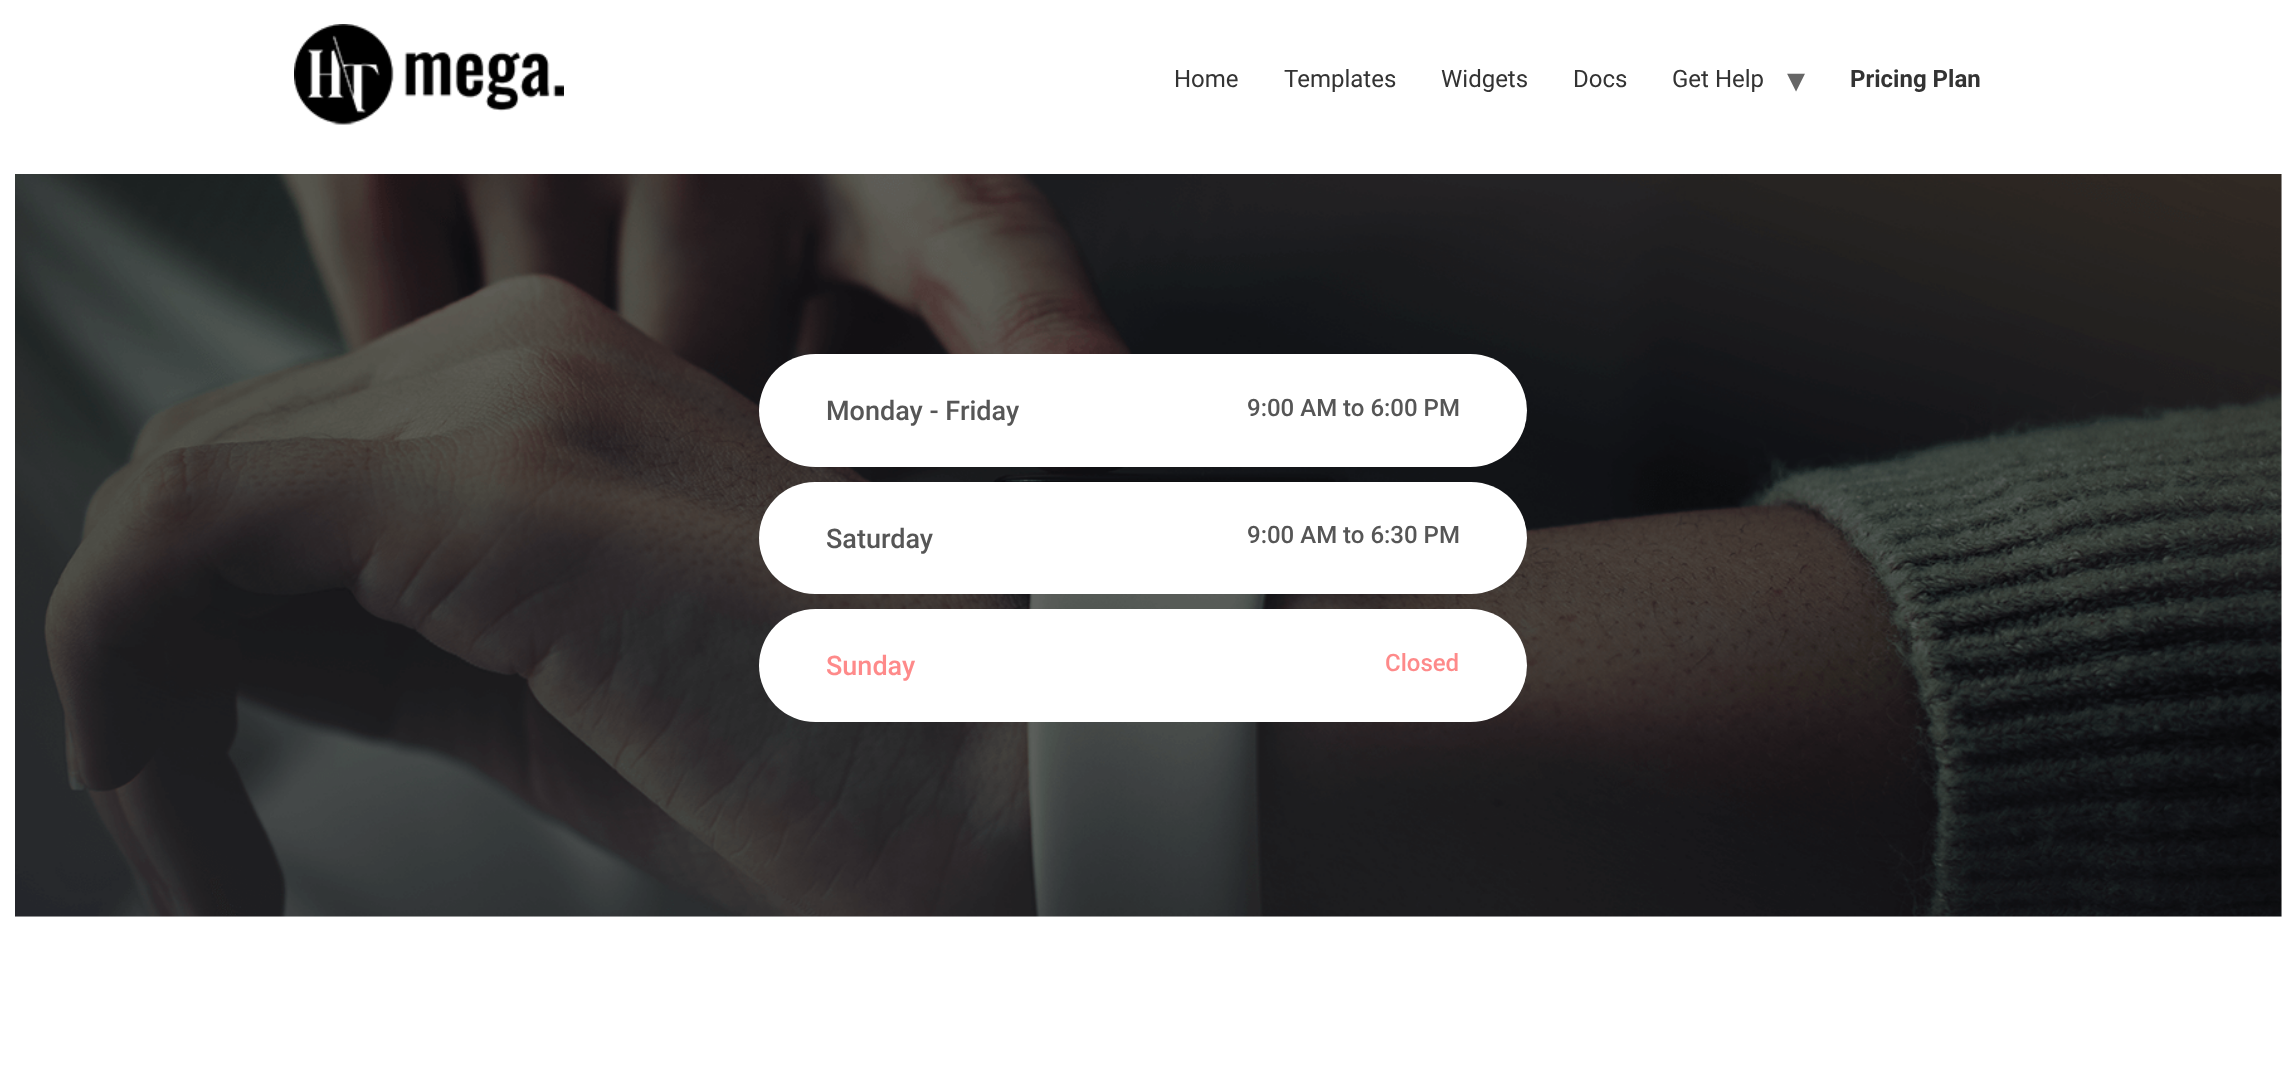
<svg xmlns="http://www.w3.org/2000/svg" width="2296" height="1090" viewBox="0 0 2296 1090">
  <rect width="100%" height="100%" fill="rgb(255,255,255)"/>
  <image x="294" y="24" width="270" height="101" href="pic1.png"/>
  <g font-family="Roboto" font-size="24" fill="rgb(51,51,51)">
    <text x="1174" y="87">Home</text>
    <text x="1284" y="87">Templates</text>
    <text x="1441" y="87">Widgets</text>
    <text x="1573" y="87">Docs</text>
    <text x="1672" y="87">Get Help</text>
  </g>
  <text x="1787" y="92" font-family="DejaVu Sans" font-size="36" fill="rgb(102,102,102)">▾</text>
  <text x="1850" y="87" font-family="Roboto" font-size="24" font-weight="bold" fill="rgb(51,51,51)">Pricing Plan</text>
  <rect x="15" y="174" width="2267" height="743" fill="rgb(244,244,244)"/>
  <image x="15" y="174" width="2267" height="743" href="pic2.png"/>
  <rect x="759" y="354" width="768" height="113" rx="56.5" fill="rgb(255,255,255)"/>
  <text x="826" y="420" font-family="Roboto" font-size="27" font-weight="500" fill="rgb(86,86,86)">Monday - Friday</text>
  <text x="1247" y="416" font-family="Roboto" font-size="24" font-weight="500" fill="rgb(86,86,86)">9:00 AM to 6:00 PM</text>
  <rect x="759" y="482" width="768" height="112" rx="56" fill="rgb(255,255,255)"/>
  <text x="826" y="548" font-family="Roboto" font-size="27" font-weight="500" fill="rgb(86,86,86)">Saturday</text>
  <text x="1247" y="543" font-family="Roboto" font-size="24" font-weight="500" fill="rgb(86,86,86)">9:00 AM to 6:30 PM</text>
  <rect x="759" y="609" width="768" height="113" rx="56.5" fill="rgb(255,255,255)"/>
  <text x="826" y="675" font-family="Roboto" font-size="27" font-weight="500" fill="rgb(254,138,138)">Sunday</text>
  <text x="1385" y="671" font-family="Roboto" font-size="24" font-weight="500" fill="rgb(254,138,138)">Closed</text>
</svg>
